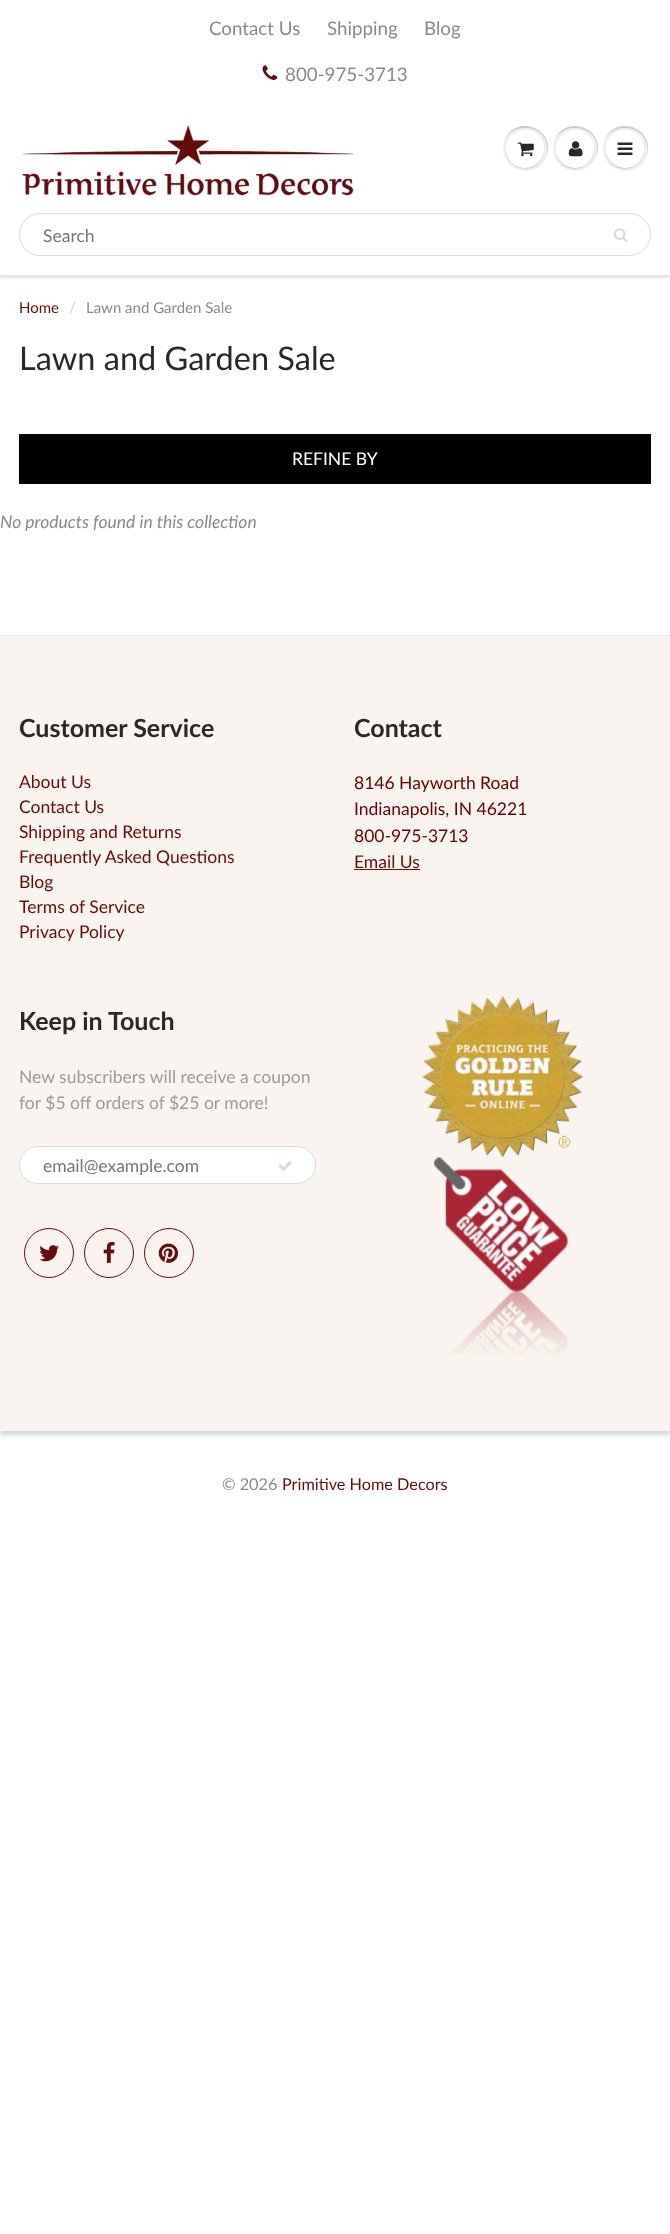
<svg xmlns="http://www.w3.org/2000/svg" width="670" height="2234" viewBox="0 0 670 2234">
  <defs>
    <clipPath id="clip1"><rect x="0" y="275" width="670" height="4"/></clipPath>
  </defs>
  <rect width="100%" height="100%" fill="rgb(255,255,255)"/>
  <text x="209" y="35" font-family="Lato" font-size="18.75" fill="rgb(137,137,137)">Contact Us</text>
  <rect x="314" y="15" width="1" height="26" fill="rgb(252,255,255)"/>
  <text x="327" y="35" font-family="Lato" font-size="18.75" fill="rgb(137,137,137)">Shipping</text>
  <rect x="410" y="15" width="1" height="26" fill="rgb(252,255,255)"/>
  <text x="424" y="35" font-family="Lato" font-size="18.75" fill="rgb(137,137,137)">Blog</text>
  <image x="262" y="65" width="16" height="15" href="pic1.png"/>
  <text x="285" y="81" font-family="Lato" font-size="18.75" fill="rgb(137,137,137)">800-975-3713</text>
  <g clip-path="url(#clip1)">
    <rect x="0" y="111" width="670" height="167" fill="rgba(11,25,28,0.12)" filter="blur(1px)"/>
  </g>
  <rect x="0" y="109" width="670" height="1" fill="rgb(252,255,255)"/>
  <image x="22" y="125" width="332" height="71" href="pic2.png"/>
  <circle cx="525.5" cy="148.5" r="22.5" fill="rgb(237,239,239)"/>
  <path d="M525 128C543 128 550 143 547 156C556 128 515 113 504 141C507 134 514 128 525 128Z" fill="rgb(201,203,203)"/>
  <path d="M506.5 145.5C501.5 165.5 529 178 541 160.5C543.5 156 544.5 150.5 543.5 145.5C547 165 520.5 176 509.5 159C507 155.5 505.5 150.5 506.5 145.5Z" fill="rgb(201,203,203)"/>
  <circle cx="525" cy="149" r="19" fill="rgb(255,255,255)"/>
  <path d="M525 131C539 131 545 143 543 153C545 148 544 143 541 138C529 121 502 133 507 153C505 143 511 131 525 131Z" fill="rgb(255,255,255)"/>
  <image x="517" y="142" width="17" height="15" href="pic3.png"/>
  <circle cx="575.5" cy="148.5" r="22.5" fill="rgb(237,239,239)"/>
  <path d="M575 128C593 128 600 143 597 156C606 128 565 113 554 141C557 134 564 128 575 128Z" fill="rgb(201,203,203)"/>
  <path d="M556.5 145.5C555.5 150.5 556.5 156 559 160.5C571 178 598.5 165.5 593.5 145.5C594.5 150.5 593 155.5 590.5 159C579.5 176 553 165 556.5 145.5Z" fill="rgb(201,203,203)"/>
  <circle cx="575" cy="149" r="19" fill="rgb(255,255,255)"/>
  <path d="M575 131C589 131 595 143 593 153C595 148 594 143 591 138C579 121 552 133 557 153C555 143 561 131 575 131Z" fill="rgb(255,255,255)"/>
  <image x="568" y="141" width="15" height="16" href="pic4.png"/>
  <circle cx="625.5" cy="148.5" r="22.5" fill="rgb(237,239,239)"/>
  <path d="M625 128C643 128 650 143 647 156C656 128 615 113 604 141C607 134 614 128 625 128Z" fill="rgb(201,203,203)"/>
  <path d="M606.5 145.5C605.5 150.5 606.5 156 609 160.5C621 178 648.5 165.5 643.5 145.5C647 165 620.5 176 609.5 159C607 155.5 605.5 150.5 606.5 145.5Z" fill="rgb(201,203,203)"/>
  <circle cx="625" cy="149" r="19" fill="rgb(255,255,255)"/>
  <path d="M625 131C639 131 645 143 643 153C645 148 644 143 641 138C629 121 602 133 607 153C605 143 611 131 625 131Z" fill="rgb(255,255,255)"/>
  <image x="617" y="142" width="16" height="13" href="pic5.png"/>
  <rect x="19.5" y="213.5" width="631" height="42" rx="21" fill="none" stroke="rgb(215,219,219)"/>
  <text x="43" y="242" font-family="Lato" font-size="17.5" fill="rgb(117,117,117)">Search</text>
  <image x="613" y="228" width="15" height="14" href="pic6.png"/>
  <text x="19" y="313" font-family="Lato" font-size="15" fill="rgb(101,12,13)">Home</text>
  <text x="69" y="313" font-family="Lato" font-size="15" fill="rgb(204,204,204)">/</text>
  <text x="86" y="313" font-family="Lato" font-size="15" fill="rgb(137,137,137)">Lawn and Garden Sale</text>
  <text x="19" y="370" font-family="Lato" font-size="32.5" fill="rgb(40,40,39)">Lawn and Garden Sale</text>
  <rect x="19" y="434" width="632" height="50" fill="rgb(0,0,0)"/>
  <text x="292" y="465" font-family="Lato" font-size="17.5" fill="rgb(255,255,255)">REFINE BY</text>
  <text x="0" y="528" font-family="Lato" font-size="17.5" font-style="italic" fill="rgb(137,137,137)">No products found in this collection</text>
  <rect x="0" y="639" width="670" height="796" fill="rgb(209,215,215)" filter="blur(2px)"/>
  <rect x="0" y="636" width="670" height="795" fill="rgb(249,244,239)"/>
  <rect x="0" y="635" width="670" height="1" fill="rgb(236,239,239)"/>
  <text x="19" y="737" font-family="Lato" font-size="25" font-weight="bold" fill="rgb(40,40,39)">Customer Service</text>
  <g font-family="Lato" font-size="17.5" fill="rgb(101,12,13)">
    <text>
      <tspan x="19" y="788">About Us</tspan>
      <tspan x="19" y="813">Contact Us</tspan>
      <tspan x="19" y="838">Shipping and Returns</tspan>
      <tspan x="19" y="863">Frequently Asked Questions</tspan>
      <tspan x="19" y="888">Blog</tspan>
      <tspan x="19" y="913">Terms of Service</tspan>
      <tspan x="19" y="938">Privacy Policy</tspan>
    </text>
  </g>
  <text x="354" y="737" font-family="Lato" font-size="25" font-weight="bold" fill="rgb(40,40,39)">Contact</text>
  <g font-family="Lato" font-size="17.5" fill="rgb(103,0,1)">
    <text>
      <tspan x="354" y="789">8146 Hayworth Road</tspan>
      <tspan x="354" y="815">Indianapolis, IN 46221</tspan>
      <tspan x="354" y="842">800-975-3713</tspan>
    </text>
  </g>
  <text x="354" y="868" font-family="Lato" font-size="17.5" fill="rgb(101,12,13)">Email Us</text>
  <rect x="354" y="869" width="66" height="1" fill="rgb(101,12,13)"/>
  <text x="19" y="1030" font-family="Lato" font-size="25" font-weight="bold" fill="rgb(40,40,39)">Keep in Touch</text>
  <g font-family="Lato" font-size="17.5" fill="rgb(154,154,154)">
    <text>
      <tspan x="19" y="1083">New subscribers will receive a coupon</tspan>
      <tspan x="19" y="1109">for $5 off orders of $25 or more!</tspan>
    </text>
  </g>
  <rect x="19.5" y="1146.5" width="296" height="37" rx="18.5" fill="rgb(255,255,255)" stroke="rgb(215,219,219)"/>
  <text x="43" y="1172" font-family="Lato" font-size="17.5" fill="rgb(117,117,117)">email@example.com</text>
  <image x="278" y="1161" width="14" height="10" href="pic7.png"/>
  <circle cx="49" cy="1253" r="24.5" fill="none" stroke="rgb(101,12,13)"/>
  <image x="39" y="1245" width="20" height="17" href="pic8.png"/>
  <circle cx="109" cy="1253" r="24.5" fill="none" stroke="rgb(101,12,13)"/>
  <image x="103" y="1242" width="12" height="21" href="pic9.png"/>
  <circle cx="169" cy="1253" r="24.5" fill="none" stroke="rgb(101,12,13)"/>
  <image x="158" y="1243" width="20" height="20" href="pic10.png"/>
  <image x="422" y="996" width="161" height="162" href="pic11.png"/>
  <image x="433" y="1157" width="136" height="198" href="pic12.png"/>
  <text x="222" y="1490" font-family="Lato" font-size="16.25" fill="rgb(137,137,137)">© 2026</text>
  <text x="282" y="1490" font-family="Lato" font-size="16.25" fill="rgb(101,12,13)">Primitive Home Decors</text>
  <rect x="668" y="2233" width="2" height="1" fill="rgb(245,245,245)"/>
</svg>
